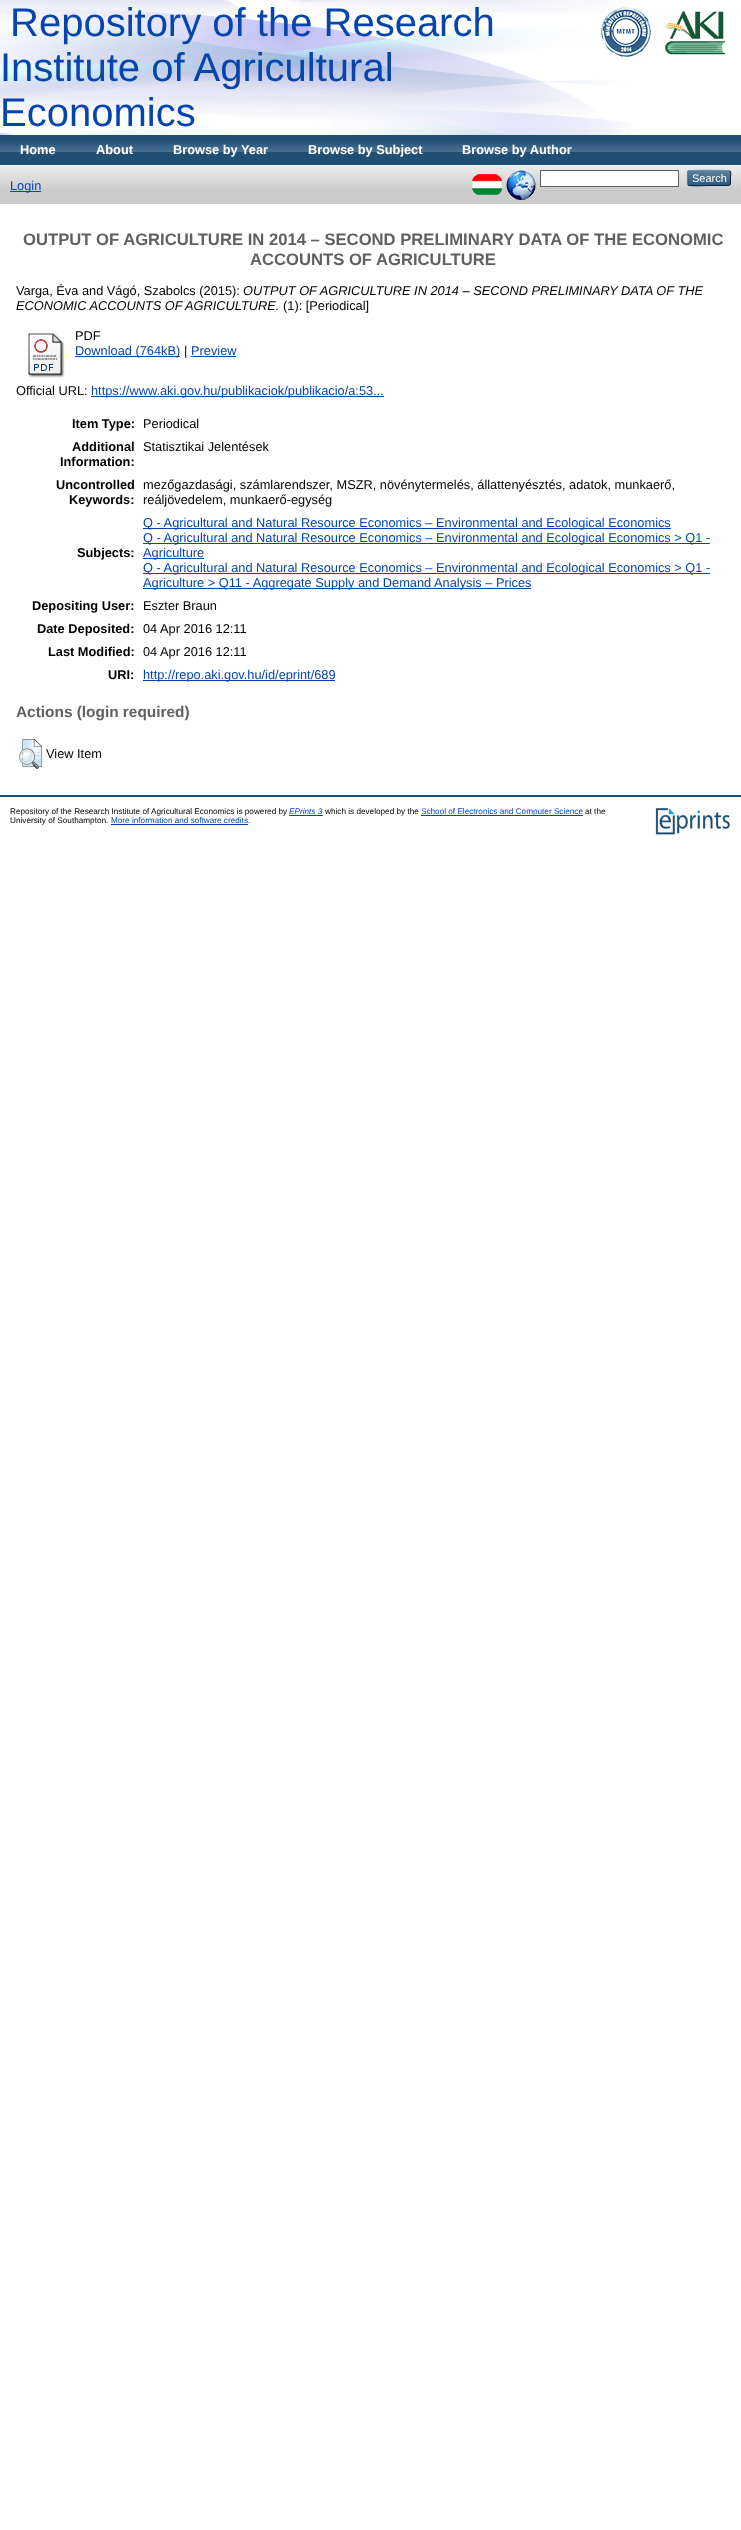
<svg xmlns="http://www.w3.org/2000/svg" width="741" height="2530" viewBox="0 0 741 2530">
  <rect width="100%" height="100%" fill="rgb(255,255,255)"/>
  <image x="0" y="0" width="630" height="135" href="pic1.png"/>
  <g font-family="Liberation Sans" font-size="40" fill="rgb(6,69,173)">
    <text x="10" y="36">Repository of the Research</text>
    <text>
      <tspan x="0" y="81">Institute of Agricultural</tspan>
      <tspan x="0" y="126">Economics</tspan>
    </text>
  </g>
  <image x="601" y="7" width="124" height="50" href="pic2.png"/>
  <rect x="0" y="135" width="741" height="30" fill="rgb(32,79,118)"/>
  <image x="0" y="141" width="741" height="11" href="pic3.png"/>
  <g font-family="Liberation Sans" font-size="12.8" font-weight="bold" fill="rgb(255,255,255)">
    <text x="20" y="154">Home</text>
    <text x="96" y="154">About</text>
    <text x="173" y="154">Browse by Year</text>
    <text x="308" y="154">Browse by Subject</text>
    <text x="462" y="154">Browse by Author</text>
  </g>
  <rect x="0" y="166" width="741" height="38" fill="rgb(204,204,204)"/>
  <image x="0" y="166" width="741" height="22" href="pic4.png"/>
  <image x="472" y="174" width="30" height="21" href="pic5.png"/>
  <image x="506" y="170" width="30" height="30" href="pic6.png"/>
  <rect x="540.5" y="170.5" width="138" height="16" fill="rgb(255,255,255)" stroke="rgb(96,96,96)"/>
  <rect x="687" y="170" width="44" height="16" rx="3" fill="rgb(31,79,118)"/>
  <image x="687" y="170" width="44" height="16" href="pic7.png"/>
  <path d="M688 171C689.5 170 728.5 170 730 171" fill="none" stroke="rgb(91,151,199)"/>
  <path d="M730 171C731.5 173 730.5 176 730.5 178C730.5 186.5 731 185.5 721.5 185.5H709C706 185.5 690 186.5 688 185" fill="none" stroke="rgb(13,33,49)"/>
  <path d="M688 185C687 183.5 687.5 179.5 687.5 178C687.5 176.5 687 172.5 688 171" fill="none" stroke="rgb(82,135,179)"/>
  <text x="692" y="182" font-family="Liberation Sans" font-size="11" fill="rgb(255,255,255)">Search</text>
  <rect x="10" y="191" width="31" height="1" fill="rgb(6,69,173)"/>
  <text x="10" y="190" font-family="Liberation Sans" font-size="12.8" fill="rgb(6,69,173)">Login</text>
  <g font-family="Liberation Sans" font-size="16.65" font-weight="bold" fill="rgb(96,96,96)">
    <text x="23" y="245">OUTPUT OF AGRICULTURE IN 2014 – SECOND PRELIMINARY DATA OF THE ECONOMIC</text>
    <text x="250" y="265">ACCOUNTS OF</text>
    <text x="376" y="265">AGRICULTURE</text>
  </g>
  <text x="16" y="295" font-family="Liberation Sans" font-size="12.8" fill="rgb(0,0,0)">Varga, Éva and Vágó, Szabolcs (2015):</text>
  <g font-family="Liberation Sans" font-size="12.8" font-style="italic" fill="rgb(0,0,0)">
    <text x="243" y="295">OUTPUT OF AGRICULTURE IN 2014 – SECOND PRELIMINARY DATA OF THE</text>
    <text x="16" y="310">ECONOMIC ACCOUNTS OF</text>
    <text x="185" y="310">AGRICULTURE.</text>
  </g>
  <text x="283" y="310" font-family="Liberation Sans" font-size="12.8" fill="rgb(0,0,0)">(1): [Periodical]</text>
  <image x="28" y="333" width="37" height="45" href="pic8.png"/>
  <text x="75" y="340" font-family="Liberation Sans" font-size="12.8" fill="rgb(0,0,0)">PDF</text>
  <rect x="75" y="356" width="105" height="1" fill="rgb(6,69,173)"/>
  <text x="75" y="355" font-family="Liberation Sans" font-size="12.8" fill="rgb(6,69,173)">Download (764kB)</text>
  <text x="184" y="355" font-family="Liberation Sans" font-size="12.8" fill="rgb(0,0,0)">|</text>
  <text x="191" y="355" font-family="Liberation Sans" font-size="12.8" fill="rgb(6,69,173)">Preview</text>
  <rect x="191" y="356" width="45" height="1" fill="rgb(6,69,173)"/>
  <text x="16" y="395" font-family="Liberation Sans" font-size="12.8" fill="rgb(0,0,0)">Official URL:</text>
  <rect x="91" y="396" width="293" height="1" fill="rgb(6,69,173)"/>
  <text x="91" y="395" font-family="Liberation Sans" font-size="12.8" fill="rgb(6,69,173)">https://www.aki.gov.hu/publikaciok/publikacio/a:53...</text>
  <text x="72" y="428" font-family="Liberation Sans" font-size="12.8" font-weight="bold" fill="rgb(0,0,0)">Item Type:</text>
  <text x="143" y="428" font-family="Liberation Sans" font-size="12.8" fill="rgb(0,0,0)">Periodical</text>
  <g font-family="Liberation Sans" font-size="12.8" font-weight="bold" fill="rgb(0,0,0)">
    <text x="72" y="451">Additional</text>
    <text x="60" y="466">Information:</text>
  </g>
  <text x="143" y="451" font-family="Liberation Sans" font-size="12.8" fill="rgb(0,0,0)">Statisztikai Jelentések</text>
  <g font-family="Liberation Sans" font-size="12.8" font-weight="bold" fill="rgb(0,0,0)">
    <text x="56" y="489">Uncontrolled</text>
    <text x="69" y="504">Keywords:</text>
  </g>
  <g font-family="Liberation Sans" font-size="12.8" fill="rgb(0,0,0)">
    <text>
      <tspan x="143" y="489">mezőgazdasági, számlarendszer, MSZR, növénytermelés, állattenyésztés, adatok, munkaerő,</tspan>
      <tspan x="143" y="504">reáljövedelem, munkaerő-egység</tspan>
    </text>
  </g>
  <text x="77" y="557" font-family="Liberation Sans" font-size="12.8" font-weight="bold" fill="rgb(0,0,0)">Subjects:</text>
  <rect x="143" y="528" width="528" height="1" fill="rgb(6,69,173)"/>
  <text x="143" y="527" font-family="Liberation Sans" font-size="12.8" fill="rgb(6,69,173)">Q - Agricultural and Natural Resource Economics – Environmental and Ecological Economics</text>
  <rect x="143" y="543" width="567" height="1" fill="rgb(6,69,173)"/>
  <text x="143" y="542" font-family="Liberation Sans" font-size="12.8" fill="rgb(6,69,173)">Q - Agricultural and Natural Resource Economics – Environmental and Ecological Economics &gt; Q1 -</text>
  <rect x="143" y="558" width="61" height="1" fill="rgb(6,69,173)"/>
  <text x="143" y="557" font-family="Liberation Sans" font-size="12.8" fill="rgb(6,69,173)">Agriculture</text>
  <rect x="143" y="573" width="567" height="1" fill="rgb(6,69,173)"/>
  <text x="143" y="572" font-family="Liberation Sans" font-size="12.8" fill="rgb(6,69,173)">Q - Agricultural and Natural Resource Economics – Environmental and Ecological Economics &gt; Q1 -</text>
  <rect x="143" y="588" width="388" height="1" fill="rgb(6,69,173)"/>
  <text x="143" y="587" font-family="Liberation Sans" font-size="12.8" fill="rgb(6,69,173)">Agriculture &gt; Q11 - Aggregate Supply and Demand Analysis – Prices</text>
  <text x="32" y="610" font-family="Liberation Sans" font-size="12.8" font-weight="bold" fill="rgb(0,0,0)">Depositing User:</text>
  <text x="143" y="610" font-family="Liberation Sans" font-size="12.8" fill="rgb(0,0,0)">Eszter Braun</text>
  <text x="37" y="633" font-family="Liberation Sans" font-size="12.8" font-weight="bold" fill="rgb(0,0,0)">Date Deposited:</text>
  <text x="143" y="633" font-family="Liberation Sans" font-size="12.8" fill="rgb(0,0,0)">04 Apr 2016 12:11</text>
  <text x="48" y="656" font-family="Liberation Sans" font-size="12.8" font-weight="bold" fill="rgb(0,0,0)">Last Modified:</text>
  <text x="143" y="656" font-family="Liberation Sans" font-size="12.8" fill="rgb(0,0,0)">04 Apr 2016 12:11</text>
  <text x="108" y="679" font-family="Liberation Sans" font-size="12.8" font-weight="bold" fill="rgb(0,0,0)">URI:</text>
  <rect x="143" y="680" width="192" height="1" fill="rgb(6,69,173)"/>
  <text x="143" y="679" font-family="Liberation Sans" font-size="12.8" fill="rgb(6,69,173)">http://repo.aki.gov.hu/id/eprint/689</text>
  <text x="16" y="717" font-family="Liberation Sans" font-size="15.4" font-weight="bold" fill="rgb(96,96,96)">Actions (login required)</text>
  <image x="19" y="739" width="23" height="30" href="pic9.png"/>
  <text x="46" y="758" font-family="Liberation Sans" font-size="12.8" fill="rgb(0,0,0)">View Item</text>
  <rect x="0" y="795" width="741" height="2" fill="rgb(32,79,118)"/>
  <text x="10" y="814" font-family="Liberation Sans" font-size="8.2" fill="rgb(0,0,0)">Repository of the Research Institute of Agricultural Economics is powered by</text>
  <text x="289" y="814" font-family="Liberation Sans" font-size="8.2" font-style="italic" fill="rgb(6,69,173)">EPrints 3</text>
  <rect x="289" y="815" width="34" height="1" fill="rgb(6,69,173)"/>
  <text x="325" y="814" font-family="Liberation Sans" font-size="8.2" fill="rgb(0,0,0)">which is developed by the</text>
  <rect x="421" y="815" width="162" height="1" fill="rgb(6,69,173)"/>
  <text x="421" y="814" font-family="Liberation Sans" font-size="8.2" fill="rgb(6,69,173)">School of Electronics and Computer Science</text>
  <g font-family="Liberation Sans" font-size="8.2" fill="rgb(0,0,0)">
    <text x="585" y="814">at the</text>
    <text x="10" y="823">University of Southampton.</text>
  </g>
  <text x="111" y="823" font-family="Liberation Sans" font-size="8.2" fill="rgb(6,69,173)">More information and software credits</text>
  <rect x="111" y="824" width="137" height="1" fill="rgb(6,69,173)"/>
  <text x="248" y="823" font-family="Liberation Sans" font-size="8.2" fill="rgb(0,0,0)">.</text>
  <image x="654" y="808" width="76" height="28" href="pic10.png"/>
</svg>
